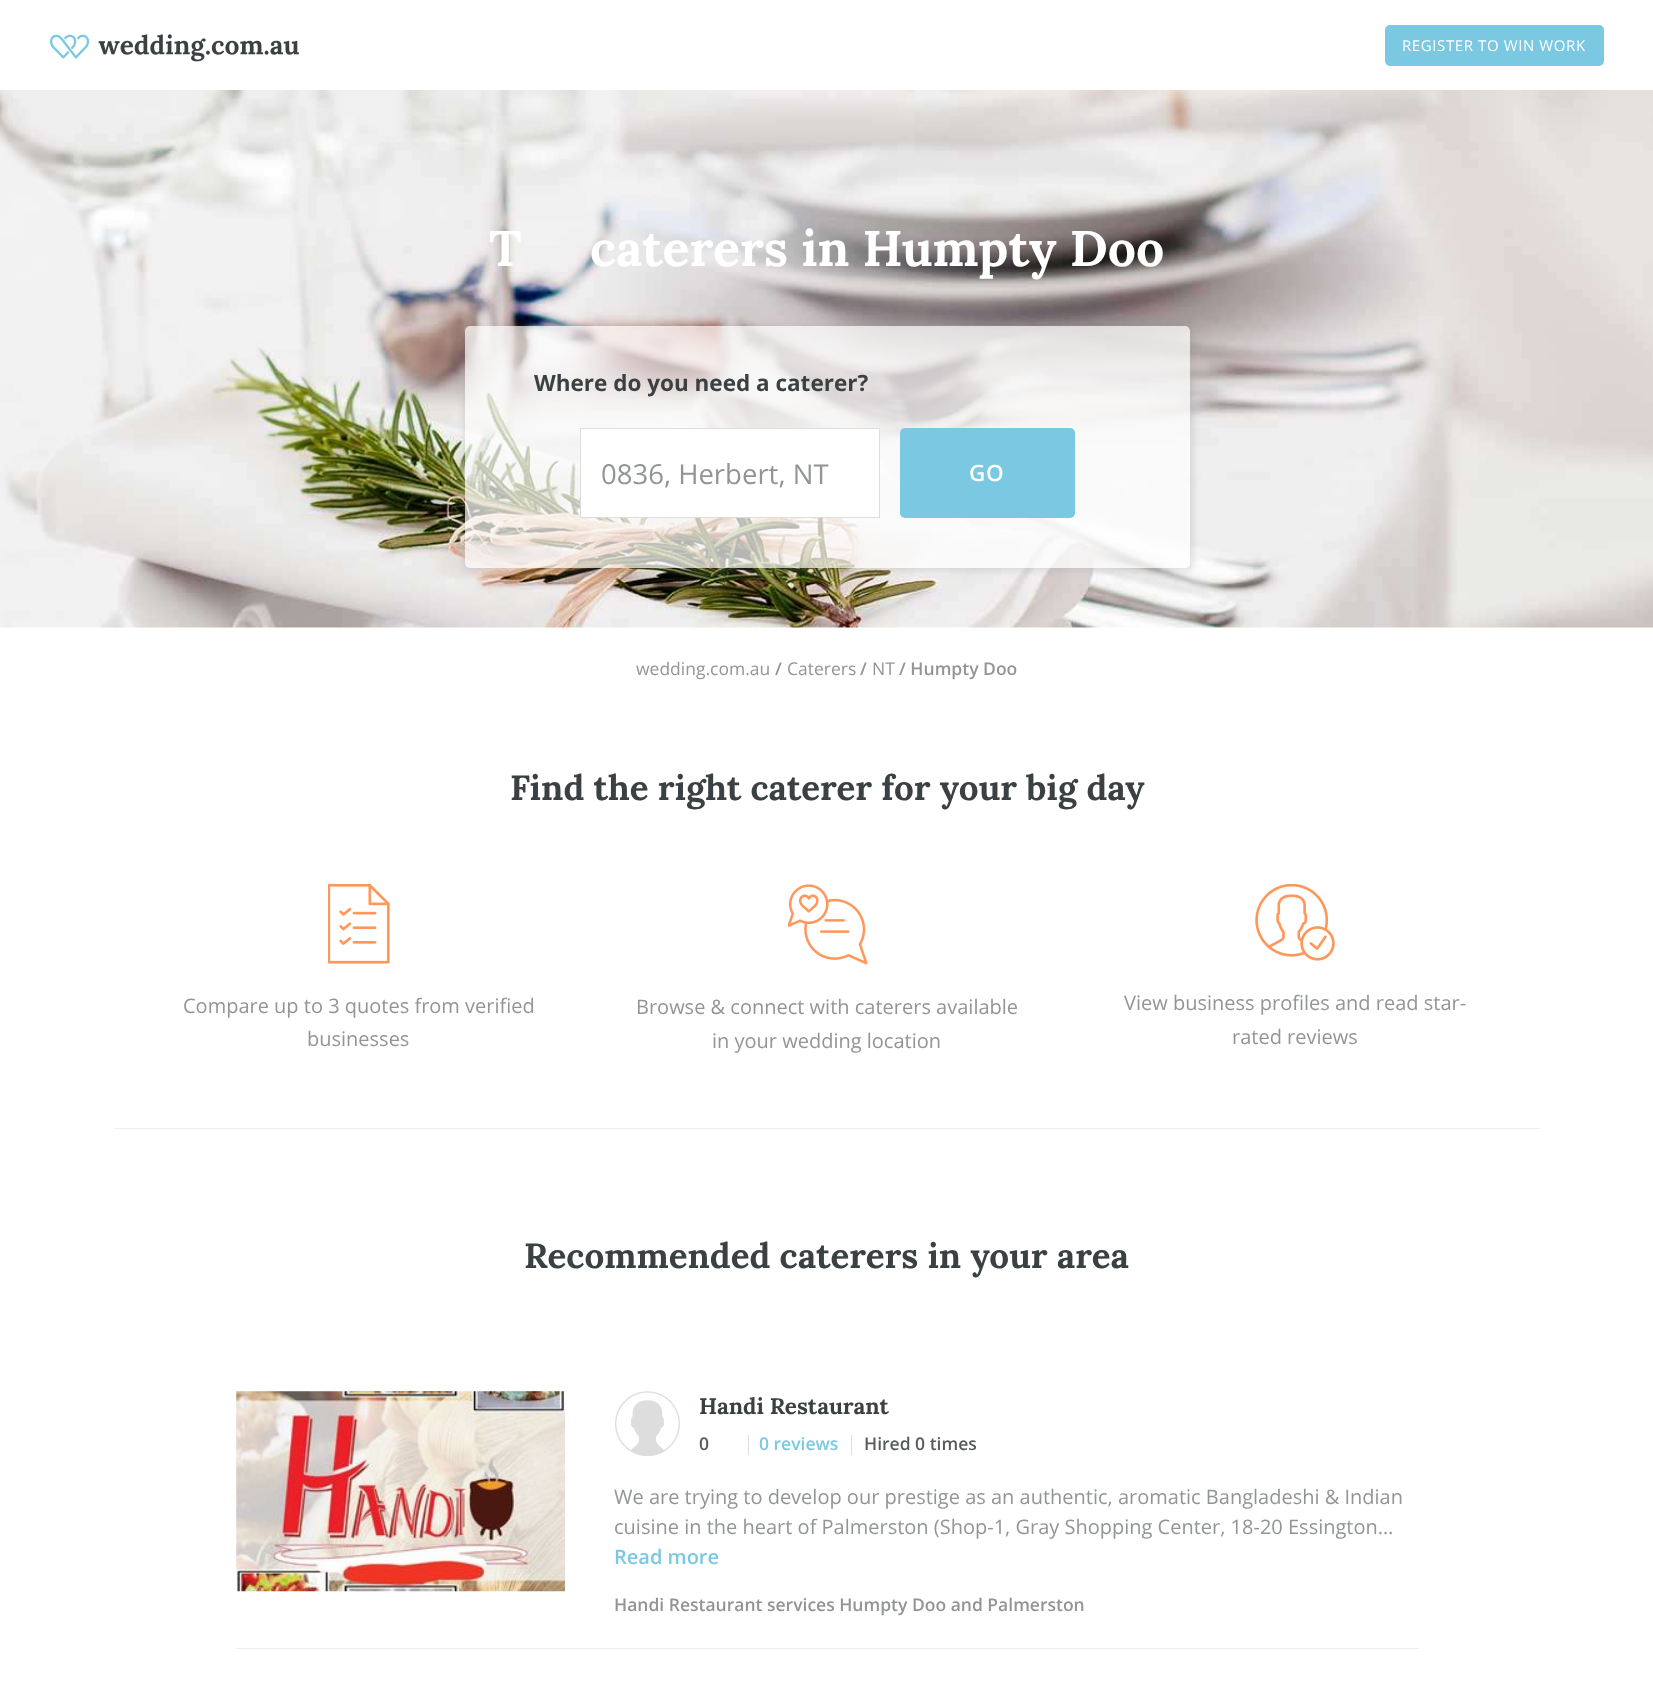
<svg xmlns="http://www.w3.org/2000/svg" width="1653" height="1684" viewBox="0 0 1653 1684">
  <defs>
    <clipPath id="clip1"><path d="M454 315H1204V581H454ZM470 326H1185C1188 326 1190 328 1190 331V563C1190 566 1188 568 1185 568H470C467 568 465 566 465 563V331C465 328 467 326 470 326Z" clip-rule="evenodd"/></clipPath>
  </defs>
  <rect width="100%" height="100%" fill="rgb(255,255,255)"/>
  <image x="50" y="34" width="249" height="28" href="pic1.png"/>
  <rect x="1385" y="25" width="219" height="41" rx="5" fill="rgb(122,200,225)"/>
  <text x="1402" y="51" font-family="Open Sans" font-size="15" letter-spacing="0.6" fill="rgb(255,255,255)">REGISTER TO WIN WORK</text>
  <image x="0" y="90" width="1653" height="538" href="pic2.png"/>
  <g font-family="Lora" font-size="50" font-weight="bold" fill="rgb(255,255,255)">
    <text x="489" y="266">T</text>
    <text x="590" y="266">caterers in Humpty Doo</text>
  </g>
  <g clip-path="url(#clip1)">
    <rect x="464" y="325" width="730" height="246" rx="8" fill="rgba(128,130,133,0.2)" filter="blur(3px)"/>
  </g>
  <rect x="465" y="326" width="725" height="242" rx="5" fill="rgba(255,255,255,0.7)"/>
  <text x="534" y="391" font-family="Open Sans" font-size="22.5" font-weight="bold" fill="rgb(59,65,67)">Where do you need a caterer?</text>
  <rect x="580.5" y="428.5" width="299" height="89" fill="rgb(255,255,255)" stroke="rgb(221,221,221)"/>
  <text x="601" y="484" font-family="Open Sans" font-size="27.5" fill="rgb(146,149,150)">0836, Herbert, NT</text>
  <rect x="900" y="428" width="175" height="90" rx="5" fill="rgb(122,200,225)"/>
  <text x="969" y="481" font-family="Open Sans" font-size="22.5" font-weight="600" letter-spacing="0.6" fill="rgb(255,255,255)">GO</text>
  <text x="636" y="675" font-family="Open Sans" font-size="17.5" fill="rgb(146,149,150)">wedding.com.au</text>
  <text x="775" y="675" font-family="Open Sans" font-size="17.5" font-weight="600" fill="rgb(146,149,150)">/</text>
  <text x="787" y="675" font-family="Open Sans" font-size="17.5" fill="rgb(146,149,150)">Caterers</text>
  <text x="860" y="675" font-family="Open Sans" font-size="17.5" font-weight="600" fill="rgb(146,149,150)">/</text>
  <text x="872" y="675" font-family="Open Sans" font-size="17.5" fill="rgb(146,149,150)">NT</text>
  <text x="899" y="675" font-family="Open Sans" font-size="17.5" font-weight="600" fill="rgb(146,149,150)">/ Humpty Doo</text>
  <rect x="115" y="1128" width="1425" height="1" fill="rgb(238,238,238)"/>
  <text x="510" y="800" font-family="Lora" font-size="35" font-weight="bold" fill="rgb(59,65,67)">Find the right caterer for your big day</text>
  <image x="328" y="884" width="62" height="80" href="pic3.png"/>
  <g font-family="Open Sans" font-size="20" fill="rgb(146,149,150)">
    <text x="183" y="1013">Compare up to 3 quotes from verified</text>
    <text x="307" y="1046">businesses</text>
  </g>
  <image x="788" y="884" width="80" height="81" href="pic4.png"/>
  <g font-family="Open Sans" font-size="20" fill="rgb(146,149,150)">
    <text x="636" y="1014">Browse &amp; connect with caterers available</text>
    <text x="712" y="1048">in your wedding location</text>
  </g>
  <image x="1255" y="884" width="80" height="77" href="pic5.png"/>
  <g font-family="Open Sans" font-size="20" fill="rgb(146,149,150)">
    <text x="1124" y="1010">View business profiles and read star-</text>
    <text x="1232" y="1044">rated reviews</text>
  </g>
  <text x="524" y="1268" font-family="Lora" font-size="35" font-weight="bold" fill="rgb(59,65,67)">Recommended caterers in your area</text>
  <rect x="236" y="1648" width="1183" height="1" fill="rgb(238,238,238)"/>
  <rect x="236" y="1391" width="329" height="200" fill="rgb(249,249,249)"/>
  <image x="236" y="1391" width="329" height="201" href="pic6.png"/>
  <image x="615" y="1391" width="65" height="65" href="pic7.png"/>
  <text x="699" y="1414" font-family="Lora" font-size="22.5" font-weight="bold" fill="rgb(59,65,67)">Handi Restaurant</text>
  <text x="699" y="1450" font-family="Open Sans" font-size="17.5" font-weight="600" fill="rgb(87,92,93)">0</text>
  <rect x="748" y="1435" width="1" height="20" fill="rgb(221,221,221)"/>
  <text x="759" y="1450" font-family="Open Sans" font-size="17.5" font-weight="600" fill="rgb(122,200,225)">0 reviews</text>
  <rect x="851" y="1435" width="1" height="20" fill="rgb(221,221,221)"/>
  <text x="864" y="1450" font-family="Open Sans" font-size="17.5" font-weight="600" fill="rgb(87,92,93)">Hired 0 times</text>
  <g font-family="Open Sans" font-size="20" fill="rgb(146,149,150)">
    <text>
      <tspan x="614" y="1504">We are trying to develop our prestige as an authentic, aromatic Bangladeshi &amp; Indian</tspan>
      <tspan x="614" y="1534">cuisine in the heart of Palmerston (Shop-1, Gray Shopping Center, 18-20 Essington…</tspan>
    </text>
  </g>
  <text x="614" y="1564" font-family="Open Sans" font-size="20" font-weight="600" fill="rgb(122,200,225)">Read more</text>
  <text x="614" y="1611" font-family="Open Sans" font-size="17.5" font-weight="600" fill="rgb(146,149,150)">Handi Restaurant services Humpty Doo and Palmerston</text>
</svg>
